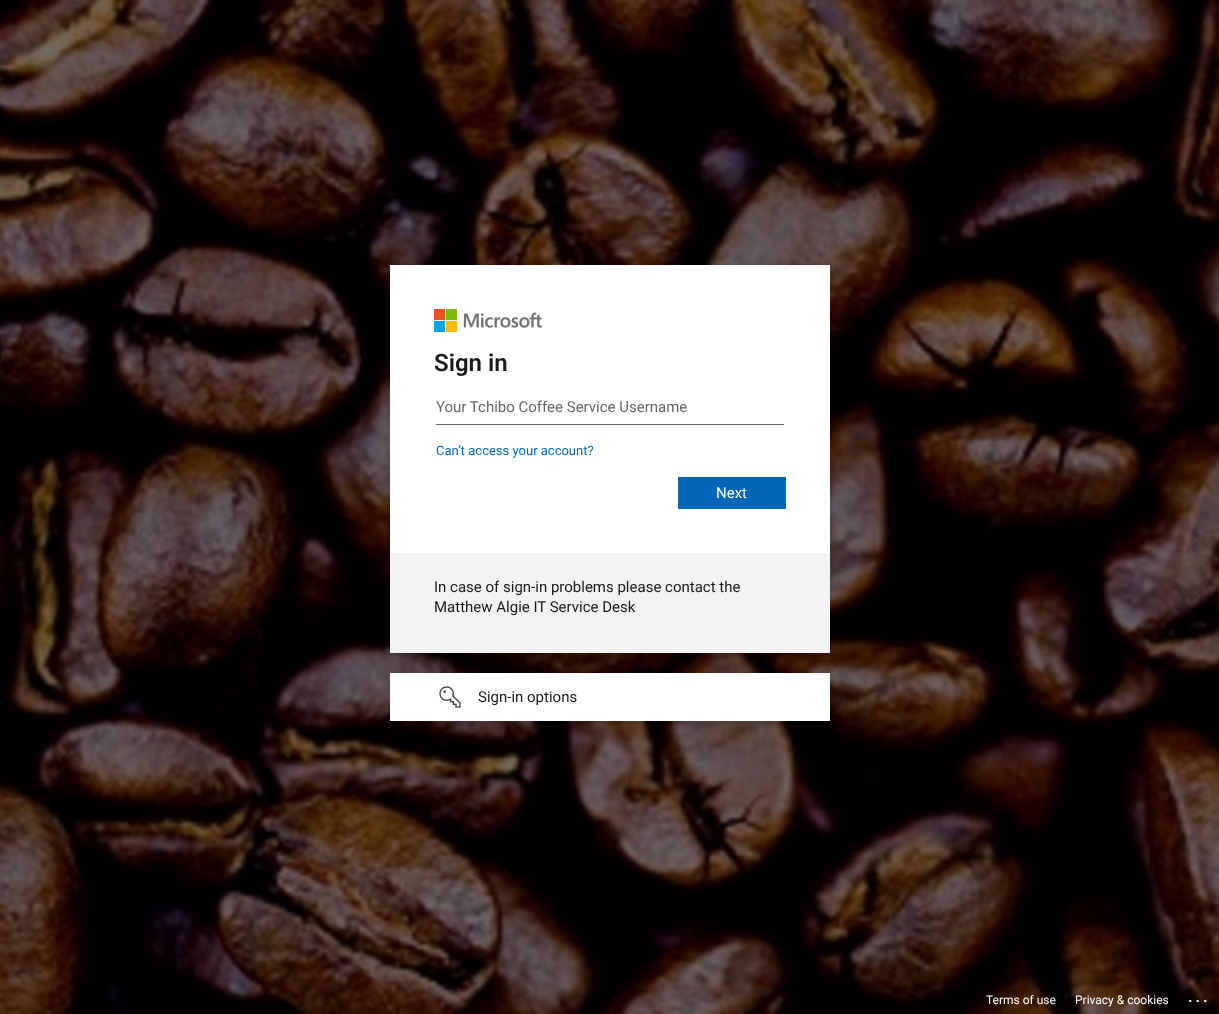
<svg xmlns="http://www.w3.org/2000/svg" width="1219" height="1014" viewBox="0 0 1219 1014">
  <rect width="100%" height="100%" fill="rgb(255,255,255)"/>
  <image x="0" y="0" width="1219" height="1014" href="pic1.png"/>
  <rect x="390" y="267" width="440" height="388" fill="rgba(0,0,0,0.2)" filter="blur(3px)"/>
  <rect x="390" y="265" width="440" height="288" fill="rgb(255,255,255)"/>
  <image x="434" y="309" width="108" height="23" href="pic2.png"/>
  <text x="434" y="371" font-family="Roboto" font-size="24" font-weight="600" fill="rgb(27,27,27)">Sign in</text>
  <rect x="436" y="424" width="348" height="1" fill="rgb(102,102,102)"/>
  <text x="436" y="412" font-family="Roboto" font-size="15" fill="rgb(102,102,102)">Your Tchibo Coffee Service Username</text>
  <text x="436" y="455" font-family="Roboto" font-size="13" fill="rgb(0,103,184)">Can’t access your account?</text>
  <rect x="678" y="477" width="108" height="32" fill="rgb(0,103,184)"/>
  <text x="716" y="498" font-family="Roboto" font-size="15" fill="rgb(255,255,255)">Next</text>
  <rect x="390" y="553" width="440" height="100" fill="rgb(242,242,242)"/>
  <g font-family="Roboto" font-size="15" fill="rgb(27,27,27)">
    <text>
      <tspan x="434" y="592">In case of sign-in problems please contact the</tspan>
      <tspan x="434" y="612">Matthew Algie IT Service Desk</tspan>
    </text>
  </g>
  <rect x="390" y="675" width="440" height="48" fill="rgba(0,0,0,0.2)" filter="blur(3px)"/>
  <rect x="390" y="673" width="440" height="48" fill="rgb(255,255,255)"/>
  <image x="439" y="686" width="22" height="22" href="pic3.png"/>
  <text x="478" y="702" font-family="Roboto" font-size="15" fill="rgb(27,27,27)">Sign-in options</text>
  <g font-family="Roboto" font-size="12" fill="rgb(255,255,255)">
    <text x="986" y="1004">Terms of use</text>
    <text x="1075" y="1004">Privacy &amp; cookies</text>
  </g>
  <text x="1188" y="1002" font-family="Roboto" font-size="16" font-weight="600" letter-spacing="3" fill="rgb(255,255,255)">...</text>
</svg>
